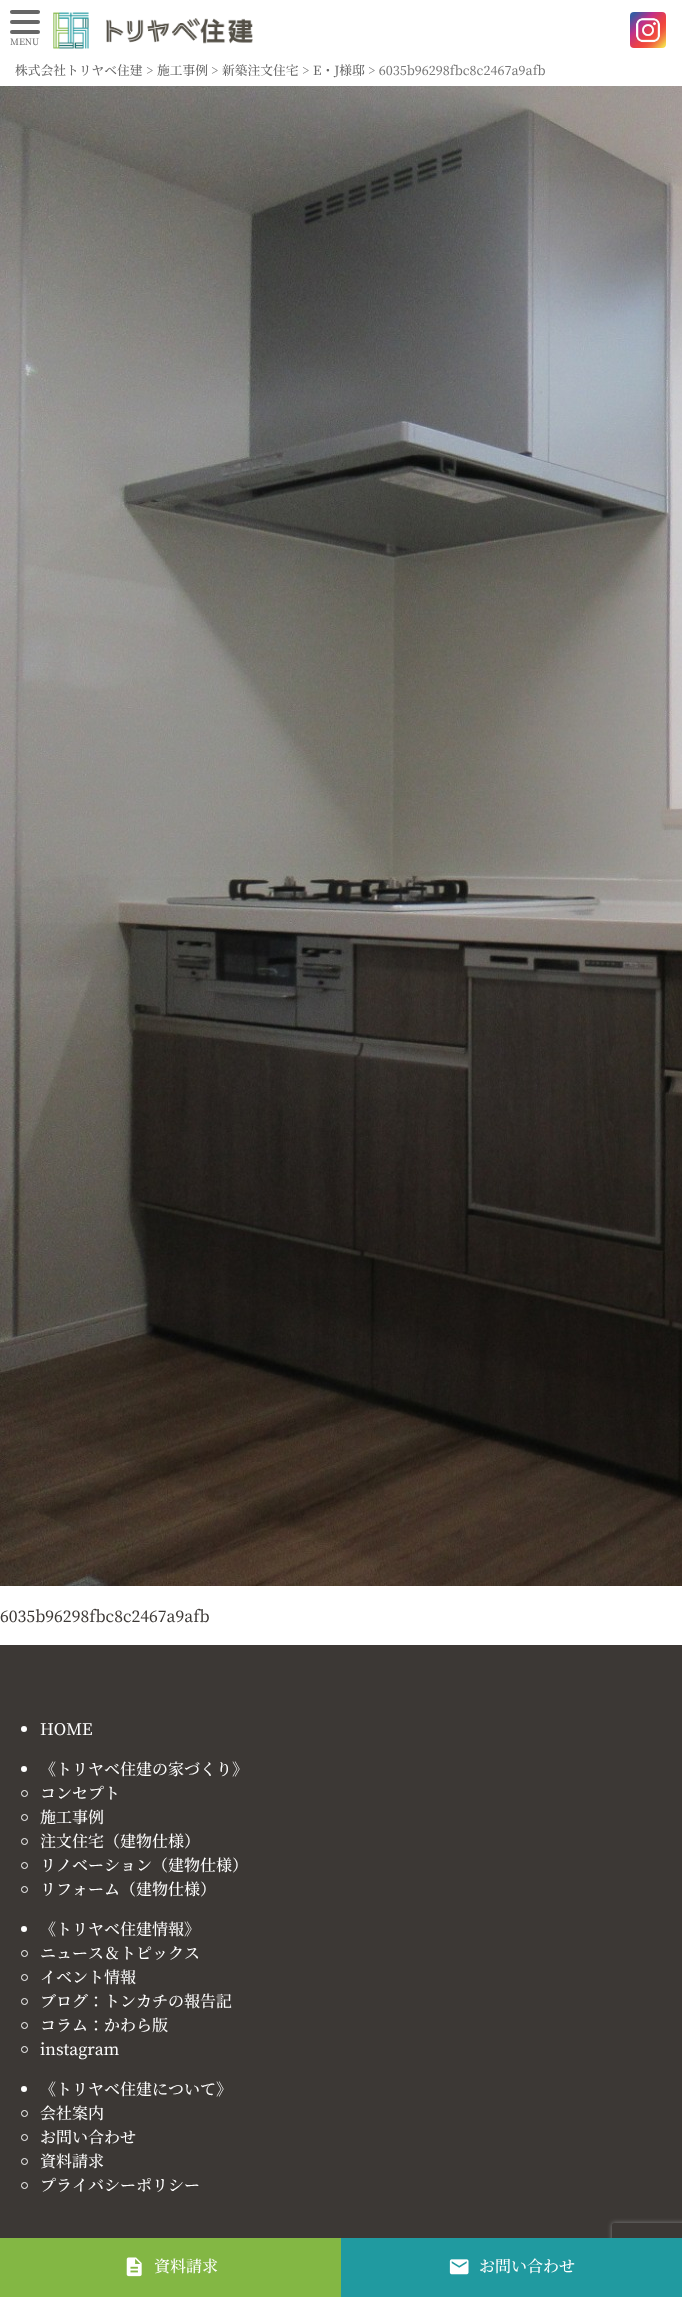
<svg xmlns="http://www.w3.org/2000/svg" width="682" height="2297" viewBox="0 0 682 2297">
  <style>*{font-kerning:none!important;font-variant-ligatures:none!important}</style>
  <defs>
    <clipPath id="clip1"><path d="M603 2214H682V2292H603ZM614 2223H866C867 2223 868 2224 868 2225V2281C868 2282 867 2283 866 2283H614C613 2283 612 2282 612 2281V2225C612 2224 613 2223 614 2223Z" clip-rule="evenodd"/></clipPath>
  </defs>
  <rect width="100%" height="100%" fill="rgb(255,255,255)"/>
  <rect x="10" y="10" width="30" height="4" rx="2" fill="rgb(102,102,102)"/>
  <rect x="10" y="20" width="30" height="4" rx="2" fill="rgb(102,102,102)"/>
  <rect x="10" y="30" width="30" height="4" rx="2" fill="rgb(102,102,102)"/>
  <text x="10" y="45" font-family="Noto Serif JP" font-size="9" font-weight="500" fill="rgb(102,102,102)">MENU</text>
  <image x="53" y="12" width="200" height="37" href="pic1.png"/>
  <image x="630" y="12" width="36" height="36" href="pic2.png"/>
  <text x="15" y="75" font-family="Noto Serif JP" font-size="12.75" font-weight="500" fill="rgb(102,102,102)">株式会社トリヤベ住建</text>
  <text x="146" y="75" font-family="Noto Serif JP" font-size="12.75" font-weight="500" fill="rgb(119,119,119)">&gt;</text>
  <text x="157" y="75" font-family="Noto Serif JP" font-size="12.75" font-weight="500" fill="rgb(102,102,102)">施工事例</text>
  <text x="211" y="75" font-family="Noto Serif JP" font-size="12.75" font-weight="500" fill="rgb(119,119,119)">&gt;</text>
  <text x="222" y="75" font-family="Noto Serif JP" font-size="12.75" font-weight="500" fill="rgb(102,102,102)">新築注文住宅</text>
  <text x="302" y="75" font-family="Noto Serif JP" font-size="12.75" font-weight="500" fill="rgb(119,119,119)">&gt;</text>
  <text x="313" y="75" font-family="Noto Serif JP" font-size="12.75" font-weight="500" fill="rgb(102,102,102)">E・J様邸</text>
  <text x="368" y="75" font-family="Noto Serif JP" font-size="12.75" font-weight="500" fill="rgb(119,119,119)">&gt; 6035b96298fbc8c2467a9afb</text>
  <image x="0" y="86" width="682" height="1500" href="pic3.png"/>
  <text x="0" y="1622" font-family="Noto Serif JP" font-size="16" font-weight="500" fill="rgb(60,56,53)">6035b96298fbc8c2467a9afb</text>
  <rect x="0" y="1645" width="682" height="593" fill="rgb(60,56,53)"/>
  <circle cx="24" cy="1729" r="3" fill="rgb(255,255,255)"/>
  <text x="40" y="1735" font-family="Noto Serif JP" font-size="16" font-weight="500" fill="rgb(255,255,255)">HOME</text>
  <circle cx="24" cy="1769" r="3" fill="rgb(255,255,255)"/>
  <text x="40" y="1775" font-family="Noto Serif JP" font-size="16" font-weight="500" fill="rgb(255,255,255)">《トリヤベ住建の家づくり》</text>
  <circle cx="24.5" cy="1793.5" r="3" fill="none" stroke="rgb(255,255,255)"/>
  <text x="40" y="1799" font-family="Noto Serif JP" font-size="16" font-weight="500" fill="rgb(255,255,255)">コンセプト</text>
  <circle cx="24.5" cy="1817.5" r="3" fill="none" stroke="rgb(255,255,255)"/>
  <text x="40" y="1823" font-family="Noto Serif JP" font-size="16" font-weight="500" fill="rgb(255,255,255)">施工事例</text>
  <circle cx="24.5" cy="1841.5" r="3" fill="none" stroke="rgb(255,255,255)"/>
  <text x="40" y="1847" font-family="Noto Serif JP" font-size="16" font-weight="500" fill="rgb(255,255,255)">注文住宅（建物仕様）</text>
  <circle cx="24.5" cy="1865.5" r="3" fill="none" stroke="rgb(255,255,255)"/>
  <text x="40" y="1871" font-family="Noto Serif JP" font-size="16" font-weight="500" fill="rgb(255,255,255)">リノベーション（建物仕様）</text>
  <circle cx="24.5" cy="1889.5" r="3" fill="none" stroke="rgb(255,255,255)"/>
  <text x="40" y="1895" font-family="Noto Serif JP" font-size="16" font-weight="500" fill="rgb(255,255,255)">リフォーム（建物仕様）</text>
  <circle cx="24" cy="1929" r="3" fill="rgb(255,255,255)"/>
  <text x="40" y="1935" font-family="Noto Serif JP" font-size="16" font-weight="500" fill="rgb(255,255,255)">《トリヤベ住建情報》</text>
  <circle cx="24.5" cy="1953.5" r="3" fill="none" stroke="rgb(255,255,255)"/>
  <text x="40" y="1959" font-family="Noto Serif JP" font-size="16" font-weight="500" fill="rgb(255,255,255)">ニュース＆トピックス</text>
  <circle cx="24.5" cy="1977.5" r="3" fill="none" stroke="rgb(255,255,255)"/>
  <text x="40" y="1983" font-family="Noto Serif JP" font-size="16" font-weight="500" fill="rgb(255,255,255)">イベント情報</text>
  <circle cx="24.5" cy="2001.5" r="3" fill="none" stroke="rgb(255,255,255)"/>
  <text x="40" y="2007" font-family="Noto Serif JP" font-size="16" font-weight="500" fill="rgb(255,255,255)">ブログ：トンカチの報告記</text>
  <circle cx="24.5" cy="2025.5" r="3" fill="none" stroke="rgb(255,255,255)"/>
  <text x="40" y="2031" font-family="Noto Serif JP" font-size="16" font-weight="500" fill="rgb(255,255,255)">コラム：かわら版</text>
  <circle cx="24.5" cy="2049.5" r="3" fill="none" stroke="rgb(255,255,255)"/>
  <text x="40" y="2055" font-family="Noto Serif JP" font-size="16" font-weight="500" fill="rgb(255,255,255)">instagram</text>
  <circle cx="24" cy="2089" r="3" fill="rgb(255,255,255)"/>
  <text x="40" y="2095" font-family="Noto Serif JP" font-size="16" font-weight="500" fill="rgb(255,255,255)">《トリヤベ住建について》</text>
  <circle cx="24.5" cy="2113.5" r="3" fill="none" stroke="rgb(255,255,255)"/>
  <text x="40" y="2119" font-family="Noto Serif JP" font-size="16" font-weight="500" fill="rgb(255,255,255)">会社案内</text>
  <circle cx="24.5" cy="2137.5" r="3" fill="none" stroke="rgb(255,255,255)"/>
  <text x="40" y="2143" font-family="Noto Serif JP" font-size="16" font-weight="500" fill="rgb(255,255,255)">お問い合わせ</text>
  <circle cx="24.5" cy="2161.5" r="3" fill="none" stroke="rgb(255,255,255)"/>
  <text x="40" y="2167" font-family="Noto Serif JP" font-size="16" font-weight="500" fill="rgb(255,255,255)">資料請求</text>
  <circle cx="24.5" cy="2185.5" r="3" fill="none" stroke="rgb(255,255,255)"/>
  <text x="40" y="2191" font-family="Noto Serif JP" font-size="16" font-weight="500" fill="rgb(255,255,255)">プライバシーポリシー</text>
  <rect x="0" y="2238" width="341" height="59" fill="rgb(131,183,68)"/>
  <image x="126" y="2257" width="16" height="20" href="pic4.png"/>
  <text x="154" y="2272" font-family="Noto Serif JP" font-size="16" font-weight="500" fill="rgb(255,255,255)">資料請求</text>
  <g clip-path="url(#clip1)">
    <rect x="612" y="2223" width="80" height="60" rx="2" fill="rgb(128,128,128)" filter="blur(2.5px)"/>
  </g>
  <rect x="341" y="2238" width="341" height="59" fill="rgb(32,154,160)"/>
  <image x="449" y="2259" width="20" height="16" href="pic5.png"/>
  <text x="479" y="2272" font-family="Noto Serif JP" font-size="16" font-weight="500" fill="rgb(255,255,255)">お問い合わせ</text>
</svg>
